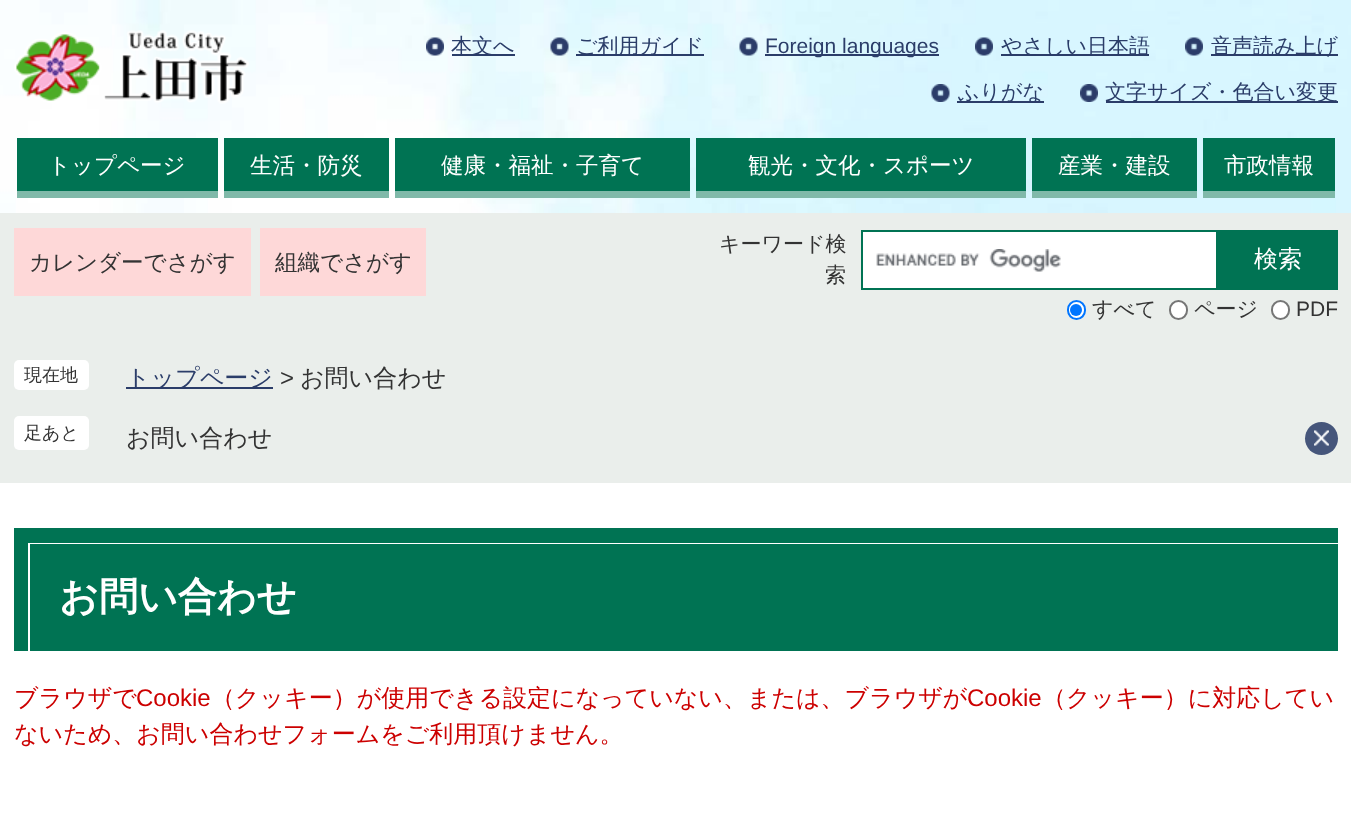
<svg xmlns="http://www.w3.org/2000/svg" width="1351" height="813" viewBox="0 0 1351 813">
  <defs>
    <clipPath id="clip1"><rect x="14" y="528" width="1324" height="123"/></clipPath>
  </defs>
  <rect width="100%" height="100%" fill="rgb(255,255,255)"/>
  <image x="0" y="0" width="1351" height="213" href="pic1.png"/>
  <image x="14" y="30" width="235" height="74" href="pic2.png"/>
  <image x="426" y="37" width="18" height="19" href="pic3.png"/>
  <rect x="452" y="54" width="63" height="2" fill="rgb(43,61,105)"/>
  <text x="451" y="53" font-family="WenQuanYi Zen Hei" font-size="21" font-weight="500" fill="rgb(43,61,105)">本文へ</text>
  <image x="550" y="37" width="19" height="19" href="pic4.png"/>
  <rect x="576" y="54" width="128" height="2" fill="rgb(43,61,105)"/>
  <text x="576" y="53" font-family="WenQuanYi Zen Hei" font-size="21" font-weight="500" fill="rgb(43,61,105)">ご利用ガイド</text>
  <image x="739" y="37" width="19" height="19" href="pic5.png"/>
  <rect x="765" y="54" width="174" height="2" fill="rgb(43,61,105)"/>
  <text x="765" y="53" font-family="Liberation Sans" font-size="21" fill="rgb(43,61,105)">Foreign languages</text>
  <image x="975" y="37" width="18" height="19" href="pic6.png"/>
  <rect x="1001" y="54" width="148" height="2" fill="rgb(43,61,105)"/>
  <text x="1001" y="53" font-family="WenQuanYi Zen Hei" font-size="21" font-weight="500" fill="rgb(43,61,105)">やさしい日本語</text>
  <image x="1185" y="37" width="18" height="19" href="pic7.png"/>
  <rect x="1211" y="54" width="127" height="2" fill="rgb(43,61,105)"/>
  <text x="1211" y="53" font-family="WenQuanYi Zen Hei" font-size="21" font-weight="500" fill="rgb(43,61,105)">音声読み上げ</text>
  <image x="931" y="84" width="19" height="18" href="pic8.png"/>
  <rect x="957" y="101" width="87" height="2" fill="rgb(43,61,105)"/>
  <text x="958" y="99" font-family="WenQuanYi Zen Hei" font-size="21" font-weight="500" fill="rgb(43,61,105)">ふりがな</text>
  <image x="1080" y="84" width="18" height="18" href="pic9.png"/>
  <rect x="1106" y="101" width="232" height="2" fill="rgb(43,61,105)"/>
  <text x="1105" y="99" font-family="WenQuanYi Zen Hei" font-size="21" font-weight="500" fill="rgb(43,61,105)">文字サイズ・色合い変更</text>
  <rect x="17" y="138" width="201" height="53" fill="rgb(0,115,83)"/>
  <rect x="17" y="191" width="201" height="7" fill="rgb(128,185,169)"/>
  <text x="48" y="173" font-family="WenQuanYi Zen Hei" font-size="22.5" font-weight="500" fill="rgb(255,255,255)">トップページ</text>
  <rect x="224" y="138" width="165" height="53" fill="rgb(0,115,83)"/>
  <rect x="224" y="191" width="165" height="7" fill="rgb(128,185,169)"/>
  <text x="250" y="173" font-family="WenQuanYi Zen Hei" font-size="22.5" font-weight="500" fill="rgb(255,255,255)">生活・防災</text>
  <rect x="395" y="138" width="295" height="53" fill="rgb(0,115,83)"/>
  <rect x="395" y="191" width="295" height="7" fill="rgb(128,185,169)"/>
  <text x="441" y="173" font-family="WenQuanYi Zen Hei" font-size="22.5" font-weight="500" fill="rgb(255,255,255)">健康・福祉・子育て</text>
  <rect x="696" y="138" width="330" height="53" fill="rgb(0,115,83)"/>
  <rect x="696" y="191" width="330" height="7" fill="rgb(128,185,169)"/>
  <text x="748" y="173" font-family="WenQuanYi Zen Hei" font-size="22.5" font-weight="500" fill="rgb(255,255,255)">観光・文化・スポーツ</text>
  <rect x="1032" y="138" width="165" height="53" fill="rgb(0,115,83)"/>
  <rect x="1032" y="191" width="165" height="7" fill="rgb(128,185,169)"/>
  <text x="1058" y="173" font-family="WenQuanYi Zen Hei" font-size="22.5" font-weight="500" fill="rgb(255,255,255)">産業・建設</text>
  <rect x="1203" y="138" width="132" height="53" fill="rgb(0,115,83)"/>
  <rect x="1203" y="191" width="132" height="7" fill="rgb(128,185,169)"/>
  <text x="1224" y="173" font-family="WenQuanYi Zen Hei" font-size="22.5" font-weight="500" fill="rgb(255,255,255)">市政情報</text>
  <rect x="0" y="213" width="1351" height="270" fill="rgb(234,238,235)"/>
  <rect x="14" y="228" width="237" height="68" fill="rgb(254,216,216)"/>
  <text x="29" y="270" font-family="WenQuanYi Zen Hei" font-size="22.5" font-weight="500" fill="rgb(51,51,51)">カレンダーでさがす</text>
  <rect x="260" y="228" width="166" height="68" fill="rgb(254,216,216)"/>
  <text x="275" y="270" font-family="WenQuanYi Zen Hei" font-size="22.5" font-weight="500" fill="rgb(51,51,51)">組織でさがす</text>
  <g font-family="WenQuanYi Zen Hei" font-size="21" font-weight="500" fill="rgb(51,51,51)">
    <text x="719" y="251">キーワード検</text>
    <text x="825" y="282">索</text>
  </g>
  <rect x="863" y="232" width="353" height="56" fill="rgb(255,255,255)"/>
  <image x="876" y="249" width="185" height="23" href="pic10.png"/>
  <rect x="862" y="231" width="355" height="58" fill="none" stroke="rgb(0,115,83)" stroke-width="2"/>
  <rect x="1218" y="230" width="120" height="60" fill="rgb(0,115,83)"/>
  <text x="1254" y="267" font-family="WenQuanYi Zen Hei" font-size="24" font-weight="500" fill="rgb(255,255,255)">検索</text>
  <rect x="1068" y="301" width="17" height="18" rx="8.5" fill="rgb(255,255,255)" stroke="rgb(0,117,255)" stroke-width="2"/>
  <circle cx="1076" cy="310" r="6" fill="rgb(0,117,255)"/>
  <text x="1092" y="316" font-family="WenQuanYi Zen Hei" font-size="21" font-weight="500" fill="rgb(51,51,51)">すべて</text>
  <rect x="1170" y="301" width="17" height="18" rx="8.5" fill="rgb(255,255,255)" stroke="rgb(118,118,118)" stroke-width="2"/>
  <text x="1194" y="316" font-family="WenQuanYi Zen Hei" font-size="21" font-weight="500" fill="rgb(51,51,51)">ページ</text>
  <rect x="1272" y="301" width="17" height="18" rx="8.5" fill="rgb(255,255,255)" stroke="rgb(118,118,118)" stroke-width="2"/>
  <text x="1296" y="316" font-family="Liberation Sans" font-size="21" fill="rgb(51,51,51)">PDF</text>
  <rect x="14" y="360" width="75" height="30" rx="5" fill="rgb(255,255,255)"/>
  <text x="24" y="381" font-family="WenQuanYi Zen Hei" font-size="18" font-weight="500" fill="rgb(51,51,51)">現在地</text>
  <rect x="126" y="387" width="147" height="2" fill="rgb(43,61,105)"/>
  <text x="126" y="386" font-family="WenQuanYi Zen Hei" font-size="24" font-weight="500" fill="rgb(43,61,105)">トップページ</text>
  <text x="280" y="386" font-family="Liberation Sans" font-size="24" fill="rgb(51,51,51)">&gt;</text>
  <text x="300" y="386" font-family="WenQuanYi Zen Hei" font-size="24" font-weight="500" fill="rgb(51,51,51)">お問い合わせ</text>
  <rect x="14" y="416" width="75" height="34" rx="5" fill="rgb(255,255,255)"/>
  <text x="24" y="439" font-family="WenQuanYi Zen Hei" font-size="18" font-weight="500" fill="rgb(51,51,51)">足あと</text>
  <text x="126" y="446" font-family="WenQuanYi Zen Hei" font-size="24" font-weight="500" fill="rgb(51,51,51)">お問い合わせ</text>
  <circle cx="1321.5" cy="438.5" r="16.5" fill="rgb(70,86,123)"/>
  <image x="1314" y="430" width="15" height="16" href="pic11.png"/>
  <rect x="30" y="544" width="1308" height="107" fill="rgb(0,115,83)"/>
  <g clip-path="url(#clip1)">
    <path d="M-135 380H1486V800H-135ZM28 543H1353V666H28Z" fill="rgb(0,115,83)" fill-rule="evenodd"/>
  </g>
  <text x="59" y="610" font-family="WenQuanYi Zen Hei" font-size="39" font-weight="bold" fill="rgb(255,255,255)">お問い合わせ</text>
  <text x="14" y="706" font-family="WenQuanYi Zen Hei" font-size="24" font-weight="500" fill="rgb(204,0,0)">ブラウザで</text>
  <text x="136" y="706" font-family="Liberation Sans" font-size="24" fill="rgb(204,0,0)">Cookie</text>
  <text x="211" y="706" font-family="WenQuanYi Zen Hei" font-size="24" font-weight="500" fill="rgb(204,0,0)">（クッキー）が使用できる設定になっていない、または、ブラウザが</text>
  <text x="967" y="706" font-family="Liberation Sans" font-size="24" fill="rgb(204,0,0)">Cookie</text>
  <g font-family="WenQuanYi Zen Hei" font-size="24" font-weight="500" fill="rgb(204,0,0)">
    <text x="1042" y="706">（クッキー）に対応してい</text>
    <text x="14" y="742">ないため、お問い合わせフォームをご利用頂けません。</text>
  </g>
</svg>
